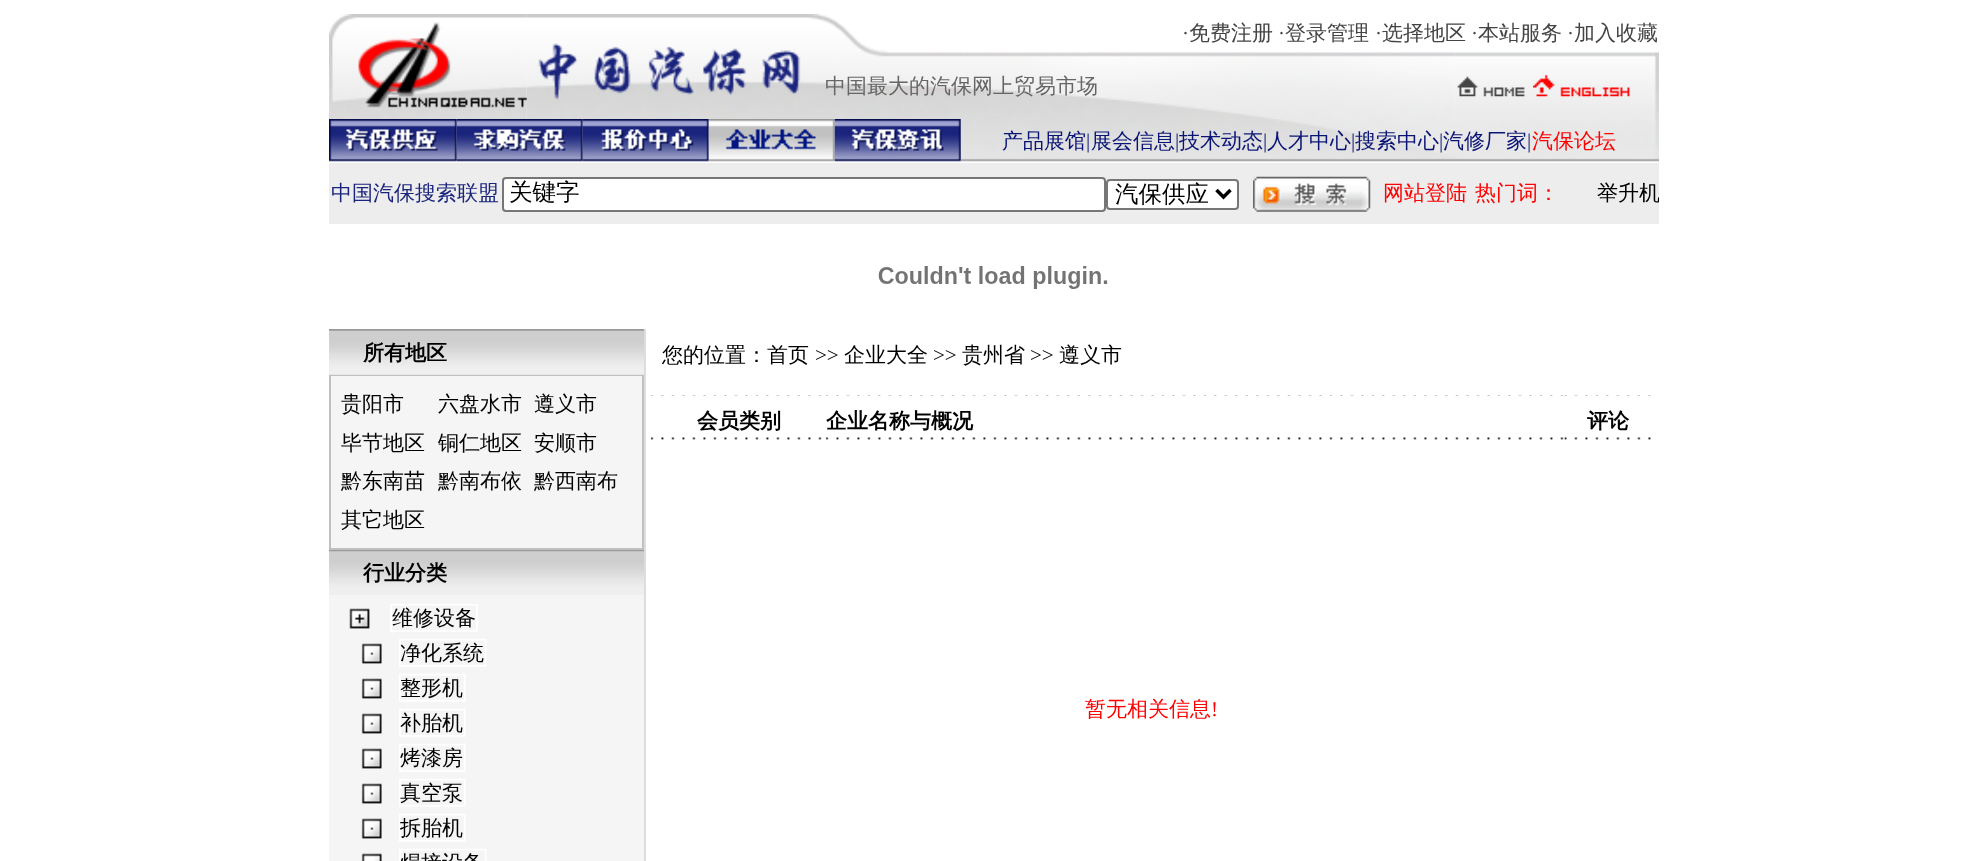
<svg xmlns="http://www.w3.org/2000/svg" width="1985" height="861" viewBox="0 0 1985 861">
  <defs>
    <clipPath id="clip1"><rect x="1563" y="179" width="96" height="31"/></clipPath>
  </defs>
  <rect width="100%" height="100%" fill="rgb(255,255,255)"/>
  <image x="526" y="14" width="363" height="105" href="pic8.png"/>
  <image x="329" y="14" width="198" height="105" href="pic1.png"/>
  <text x="1182" y="40" font-family="Liberation Serif" font-size="21" fill="rgb(68,68,68)">·</text>
  <text x="1189" y="40" font-family="WenQuanYi Zen Hei" font-size="21" font-weight="500" fill="rgb(68,68,68)">免费注册</text>
  <text x="1278" y="40" font-family="Liberation Serif" font-size="21" fill="rgb(68,68,68)">·</text>
  <text x="1285" y="40" font-family="WenQuanYi Zen Hei" font-size="21" font-weight="500" fill="rgb(68,68,68)">登录管理</text>
  <text x="1375" y="40" font-family="Liberation Serif" font-size="21" fill="rgb(68,68,68)">·</text>
  <text x="1382" y="40" font-family="WenQuanYi Zen Hei" font-size="21" font-weight="500" fill="rgb(68,68,68)">选择地区</text>
  <text x="1471" y="40" font-family="Liberation Serif" font-size="21" fill="rgb(68,68,68)">·</text>
  <text x="1478" y="40" font-family="WenQuanYi Zen Hei" font-size="21" font-weight="500" fill="rgb(68,68,68)">本站服务</text>
  <text x="1567" y="40" font-family="Liberation Serif" font-size="21" fill="rgb(68,68,68)">·</text>
  <text x="1574" y="40" font-family="WenQuanYi Zen Hei" font-size="21" font-weight="500" fill="rgb(68,68,68)">加入收藏</text>
  <image x="889" y="52" width="566" height="67" href="pic2.png"/>
  <image x="1454" y="52" width="79" height="67" href="pic3.png"/>
  <image x="1457" y="76" width="68" height="21" href="pic4.png"/>
  <image x="1533" y="52" width="121" height="67" href="pic5.png"/>
  <image x="1533" y="75" width="97" height="22" href="pic6.png"/>
  <image x="1653" y="52" width="6" height="67" href="pic7.png"/>
  <text x="825" y="93" font-family="WenQuanYi Zen Hei" font-size="21" font-weight="500" fill="rgb(102,102,102)">中国最大的汽保网上贸易市场</text>
  <image x="329" y="119" width="128" height="43" href="pic9.png"/>
  <image x="456" y="119" width="127" height="43" href="pic10.png"/>
  <image x="582" y="119" width="127" height="43" href="pic11.png"/>
  <image x="708" y="119" width="127" height="43" href="pic12.png"/>
  <image x="960" y="119" width="699" height="43" href="pic14.png"/>
  <image x="834" y="119" width="127" height="43" href="pic13.png"/>
  <text x="1002" y="148" font-family="WenQuanYi Zen Hei" font-size="21" font-weight="500" fill="rgb(10,20,116)">产品展馆</text>
  <text x="1086" y="148" font-family="Liberation Serif" font-size="21" fill="rgb(26,36,124)">|</text>
  <text x="1091" y="148" font-family="WenQuanYi Zen Hei" font-size="21" font-weight="500" fill="rgb(10,20,116)">展会信息</text>
  <text x="1175" y="148" font-family="Liberation Serif" font-size="21" fill="rgb(26,36,124)">|</text>
  <text x="1179" y="148" font-family="WenQuanYi Zen Hei" font-size="21" font-weight="500" fill="rgb(10,20,116)">技术动态</text>
  <text x="1263" y="148" font-family="Liberation Serif" font-size="21" fill="rgb(26,36,124)">|</text>
  <text x="1267" y="148" font-family="WenQuanYi Zen Hei" font-size="21" font-weight="500" fill="rgb(10,20,116)">人才中心</text>
  <text x="1351" y="148" font-family="Liberation Serif" font-size="21" fill="rgb(26,36,124)">|</text>
  <text x="1355" y="148" font-family="WenQuanYi Zen Hei" font-size="21" font-weight="500" fill="rgb(10,20,116)">搜索中心</text>
  <text x="1439" y="148" font-family="Liberation Serif" font-size="21" fill="rgb(26,36,124)">|</text>
  <text x="1443" y="148" font-family="WenQuanYi Zen Hei" font-size="21" font-weight="500" fill="rgb(10,20,116)">汽修厂家</text>
  <text x="1527" y="148" font-family="Liberation Serif" font-size="21" fill="rgb(26,36,124)">|</text>
  <text x="1532" y="148" font-family="WenQuanYi Zen Hei" font-size="21" font-weight="500" fill="rgb(255,0,0)">汽保论坛</text>
  <rect x="329" y="163" width="1330" height="61" fill="rgb(237,237,237)"/>
  <text x="331" y="200" font-family="WenQuanYi Zen Hei" font-size="21" font-weight="500" fill="rgb(26,36,124)">中国汽保搜索联盟</text>
  <rect x="503" y="178" width="602" height="33" rx="3" fill="rgb(255,255,255)" stroke="rgb(118,118,118)" stroke-width="2"/>
  <text x="509" y="200" font-family="WenQuanYi Zen Hei" font-size="23.5" font-weight="500" fill="rgb(0,0,0)">关键字</text>
  <rect x="1107" y="180" width="131" height="29" rx="3" fill="rgb(255,255,255)" stroke="rgb(118,118,118)" stroke-width="2"/>
  <path d="M1216.5 190L1223.5 197L1230.5 190" fill="none" stroke="rgb(0,0,0)" stroke-width="3.5"/>
  <text x="1115" y="202" font-family="WenQuanYi Zen Hei" font-size="23.5" font-weight="500" fill="rgb(0,0,0)">汽保供应</text>
  <image x="1253" y="176" width="118" height="36" href="pic15.png"/>
  <g font-family="WenQuanYi Zen Hei" font-size="21" font-weight="500" fill="rgb(255,0,0)">
    <text x="1383" y="200">网站登陆</text>
    <text x="1475" y="200">热门词：</text>
  </g>
  <g clip-path="url(#clip1)">
    <text x="1597" y="200" font-family="WenQuanYi Zen Hei" font-size="21" font-weight="500" fill="rgb(0,0,0)">举升机</text>
  </g>
  <image x="878" y="266" width="230" height="23" href="pic16.png"/>
  <rect x="329" y="595" width="315" height="266" fill="rgb(245,245,245)"/>
  <rect x="329" y="374" width="315" height="1" fill="rgb(221,221,221)"/>
  <rect x="329" y="329" width="315" height="2" fill="rgb(153,153,153)"/>
  <image x="329" y="330" width="35" height="45" href="pic17.png"/>
  <image x="364" y="330" width="280" height="45" href="pic18.png"/>
  <text x="363" y="360" font-family="WenQuanYi Zen Hei" font-size="21" font-weight="bold" fill="rgb(0,0,0)">所有地区</text>
  <rect x="329" y="375" width="315" height="175" fill="rgb(192,192,192)"/>
  <rect x="331" y="376" width="311" height="172" fill="rgb(245,245,245)"/>
  <g font-family="WenQuanYi Zen Hei" font-size="21" font-weight="500" fill="rgb(0,0,0)">
    <text x="341" y="411">贵阳市</text>
    <text x="438" y="411">六盘水市</text>
    <text x="534" y="411">遵义市</text>
    <text x="341" y="450">毕节地区</text>
    <text x="438" y="450">铜仁地区</text>
    <text x="534" y="450">安顺市</text>
    <text x="341" y="488">黔东南苗</text>
    <text x="438" y="488">黔南布依</text>
    <text x="534" y="488">黔西南布</text>
    <text x="341" y="527">其它地区</text>
  </g>
  <rect x="329" y="550" width="315" height="2" fill="rgb(153,153,153)"/>
  <image x="329" y="551" width="35" height="44" href="pic19.png"/>
  <image x="364" y="551" width="280" height="44" href="pic20.png"/>
  <text x="363" y="580" font-family="WenQuanYi Zen Hei" font-size="21" font-weight="bold" fill="rgb(0,0,0)">行业分类</text>
  <image x="349" y="604" width="138" height="257" href="pic21.png"/>
  <rect x="644" y="329" width="2" height="532" fill="rgb(221,221,221)"/>
  <text x="662" y="362" font-family="WenQuanYi Zen Hei" font-size="21" font-weight="500" fill="rgb(0,0,0)">您的位置：首页</text>
  <text x="815" y="362" font-family="Liberation Serif" font-size="21" fill="rgb(0,0,0)">&gt;&gt;</text>
  <text x="844" y="362" font-family="WenQuanYi Zen Hei" font-size="21" font-weight="500" fill="rgb(0,0,0)">企业大全</text>
  <text x="933" y="362" font-family="Liberation Serif" font-size="21" fill="rgb(0,0,0)">&gt;&gt;</text>
  <text x="962" y="362" font-family="WenQuanYi Zen Hei" font-size="21" font-weight="500" fill="rgb(0,0,0)">贵州省</text>
  <text x="1030" y="362" font-family="Liberation Serif" font-size="21" fill="rgb(0,0,0)">&gt;&gt;</text>
  <text x="1059" y="362" font-family="WenQuanYi Zen Hei" font-size="21" font-weight="500" fill="rgb(0,0,0)">遵义市</text>
  <image x="651" y="395" width="175" height="51" href="pic22.png"/>
  <text x="697" y="428" font-family="WenQuanYi Zen Hei" font-size="21" font-weight="bold" fill="rgb(0,0,0)">会员类别</text>
  <image x="826" y="395" width="739" height="51" href="pic23.png"/>
  <text x="826" y="428" font-family="WenQuanYi Zen Hei" font-size="21" font-weight="bold" fill="rgb(0,0,0)">企业名称与概况</text>
  <image x="1564" y="395" width="88" height="51" href="pic24.png"/>
  <text x="1587" y="428" font-family="WenQuanYi Zen Hei" font-size="21" font-weight="bold" fill="rgb(0,0,0)">评论</text>
  <text x="1085" y="716" font-family="WenQuanYi Zen Hei" font-size="21" font-weight="500" fill="rgb(255,0,0)">暂无相关信息</text>
  <text x="1211" y="716" font-family="Liberation Serif" font-size="21" fill="rgb(255,0,0)">!</text>
</svg>
